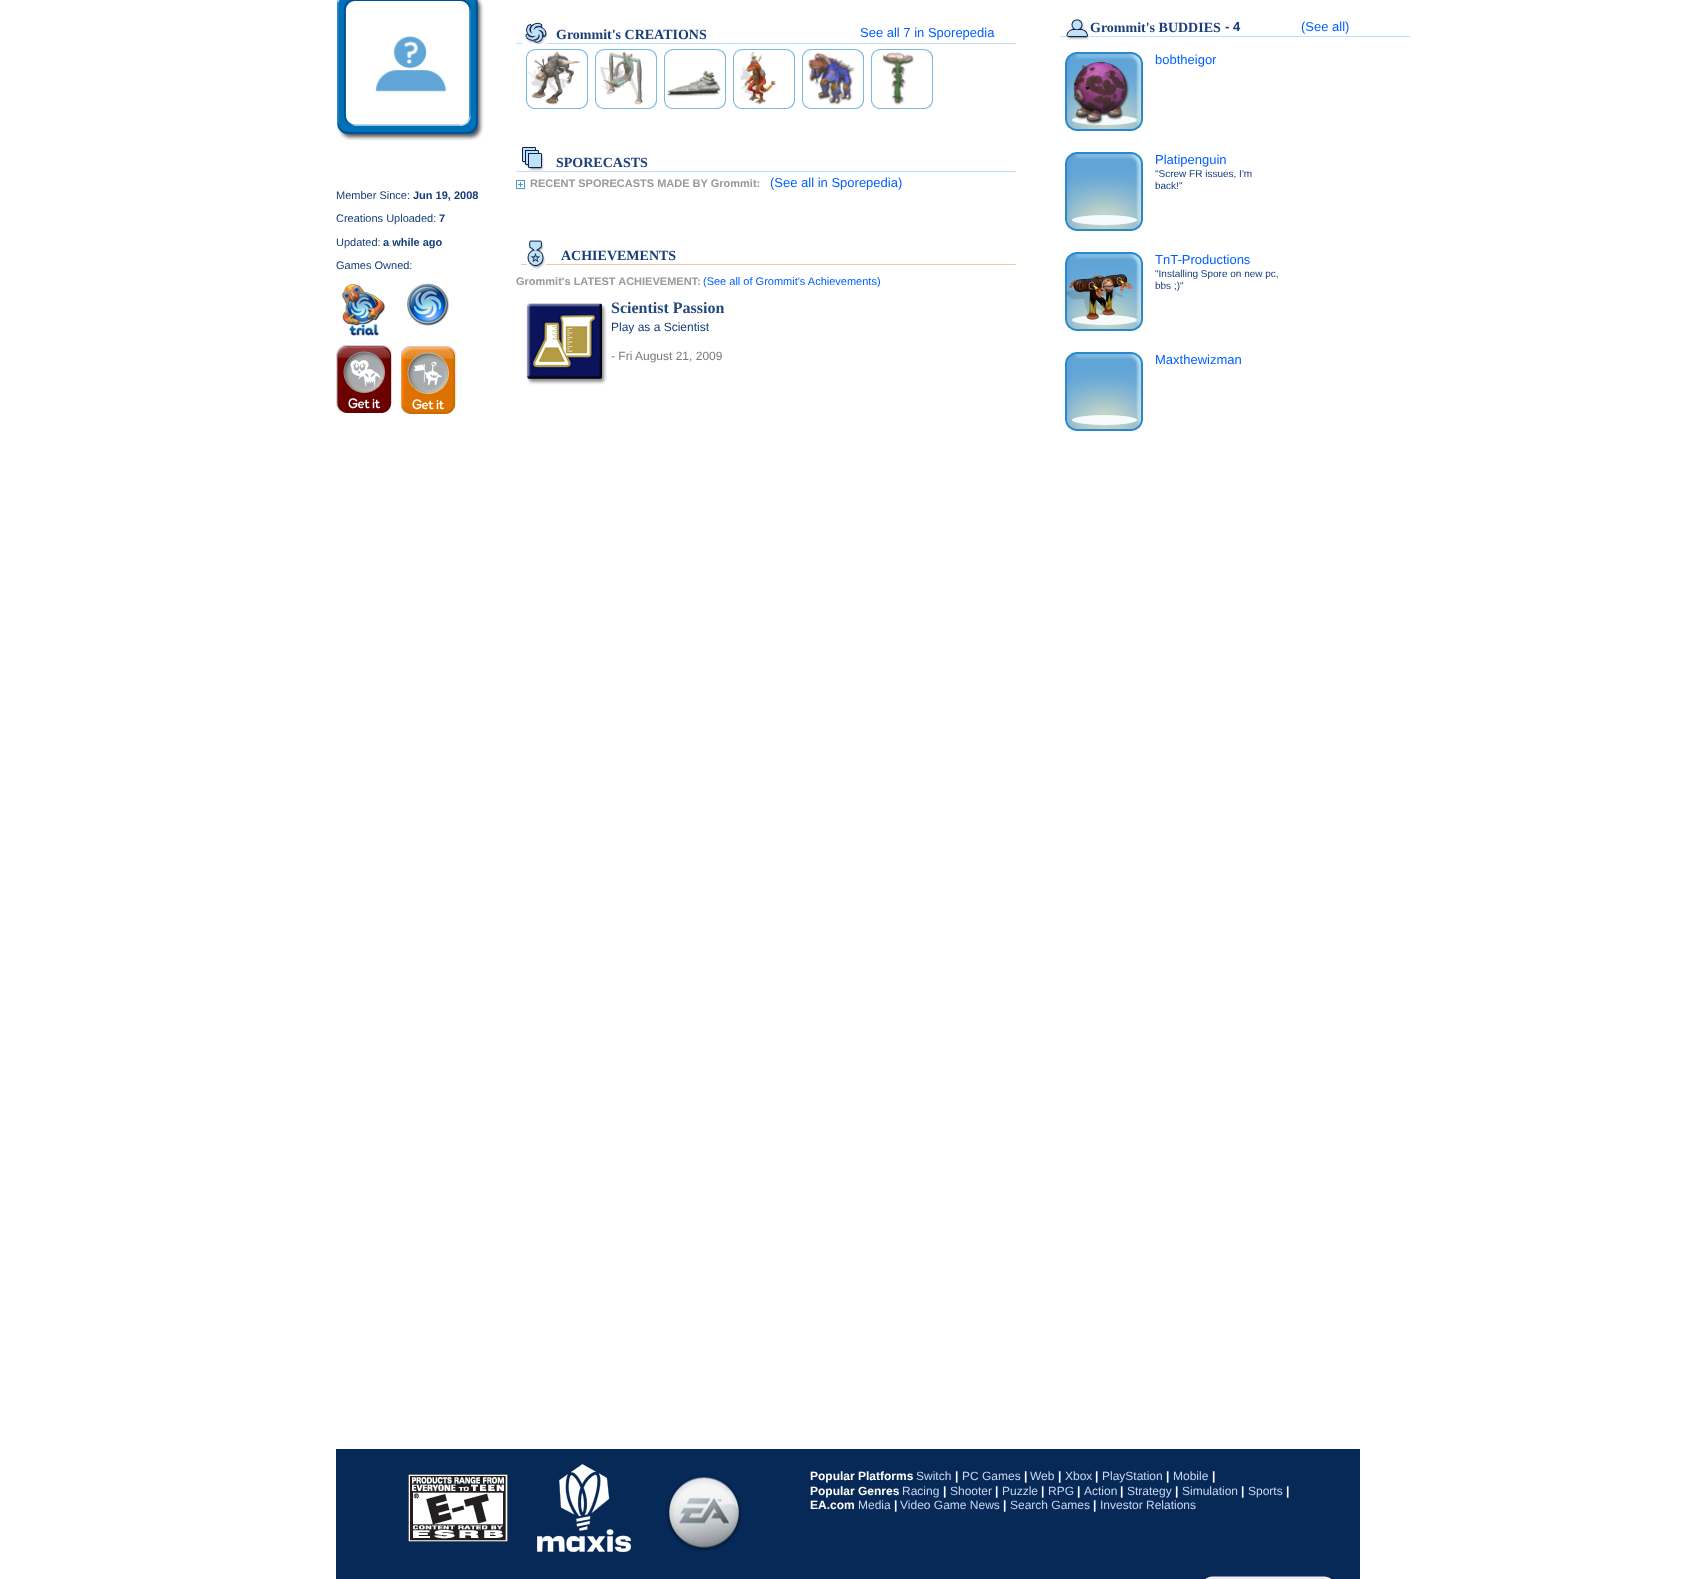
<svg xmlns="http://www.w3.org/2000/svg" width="1695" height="1579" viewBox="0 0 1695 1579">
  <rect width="100%" height="100%" fill="rgb(255,255,255)"/>
  <image x="375" y="36" width="72" height="56" href="pic2.png"/>
  <image x="337" y="0" width="147" height="141" href="pic1.png"/>
  <text x="336" y="199" font-family="Liberation Sans" font-size="11" fill="rgb(20,60,121)">Member Since:</text>
  <text x="413" y="199" font-family="Liberation Sans" font-size="11" font-weight="bold" fill="rgb(20,60,121)">Jun 19, 2008</text>
  <text x="336" y="222" font-family="Liberation Sans" font-size="11" fill="rgb(20,60,121)">Creations Uploaded:</text>
  <text x="439" y="222" font-family="Liberation Sans" font-size="11" font-weight="bold" fill="rgb(20,60,121)">7</text>
  <text x="336" y="246" font-family="Liberation Sans" font-size="11" fill="rgb(20,60,121)">Updated:</text>
  <text x="383" y="246" font-family="Liberation Sans" font-size="11" font-weight="bold" fill="rgb(20,60,121)">a while ago</text>
  <text x="336" y="269" font-family="Liberation Sans" font-size="11" fill="rgb(20,60,121)">Games Owned:</text>
  <image x="342" y="284" width="43" height="52" href="pic3.png"/>
  <image x="407" y="283" width="42" height="43" href="pic4.png"/>
  <image x="336" y="345" width="56" height="68" href="pic5.png"/>
  <image x="401" y="346" width="56" height="68" href="pic6.png"/>
  <rect x="516" y="43" width="500" height="1" fill="rgb(190,222,246)"/>
  <rect x="522" y="43" width="25" height="1" fill="rgb(255,255,255)"/>
  <image x="525" y="22" width="22" height="22" href="pic7.png"/>
  <text x="556" y="39" font-family="Liberation Serif" font-size="14" font-weight="bold" fill="rgb(27,62,120)">Grommit's CREATIONS</text>
  <text x="860" y="37" font-family="Liberation Sans" font-size="13" fill="rgb(0,95,255)">See all 7 in Sporepedia</text>
  <image x="526" y="49" width="62" height="60" href="pic8.png"/>
  <image x="527" y="51" width="54" height="54" href="pic10.png"/>
  <image x="527" y="50" width="61" height="58" href="pic9.png"/>
  <image x="595" y="49" width="62" height="60" href="pic8.png"/>
  <image x="600" y="51" width="43" height="54" href="pic12.png"/>
  <image x="596" y="50" width="61" height="58" href="pic11.png"/>
  <image x="664" y="49" width="62" height="60" href="pic8.png"/>
  <image x="667" y="70" width="54" height="27" href="pic14.png"/>
  <image x="665" y="50" width="61" height="58" href="pic13.png"/>
  <image x="733" y="49" width="62" height="60" href="pic8.png"/>
  <image x="740" y="51" width="36" height="54" href="pic16.png"/>
  <image x="734" y="50" width="61" height="58" href="pic15.png"/>
  <image x="802" y="49" width="62" height="60" href="pic8.png"/>
  <image x="808" y="52" width="47" height="53" href="pic18.png"/>
  <image x="803" y="50" width="61" height="58" href="pic17.png"/>
  <image x="871" y="49" width="62" height="60" href="pic8.png"/>
  <image x="882" y="52" width="32" height="53" href="pic20.png"/>
  <image x="872" y="50" width="61" height="58" href="pic19.png"/>
  <rect x="516" y="171" width="500" height="1" fill="rgb(190,222,246)"/>
  <image x="522" y="147" width="22" height="24" href="pic21.png"/>
  <text x="556" y="167" font-family="Liberation Serif" font-size="14" font-weight="bold" fill="rgb(27,62,120)">SPORECASTS</text>
  <image x="516" y="180" width="9" height="9" href="pic22.png"/>
  <text x="530" y="187" font-family="Liberation Sans" font-size="11" font-weight="bold" fill="rgb(153,153,153)">RECENT SPORECASTS MADE BY Grommit:</text>
  <text x="770" y="187" font-family="Liberation Sans" font-size="13" fill="rgb(0,95,255)">(See all in Sporepedia)</text>
  <rect x="521" y="264" width="495" height="1" fill="rgb(242,200,158)"/>
  <rect x="527" y="264" width="19" height="1" fill="rgb(255,255,255)"/>
  <image x="527" y="240" width="19" height="29" href="pic23.png"/>
  <text x="561" y="260" font-family="Liberation Serif" font-size="14" font-weight="bold" fill="rgb(27,62,120)">ACHIEVEMENTS</text>
  <text x="516" y="285" font-family="Liberation Sans" font-size="11" font-weight="bold" fill="rgb(153,153,153)">Grommit's LATEST ACHIEVEMENT:</text>
  <text x="703" y="285" font-family="Liberation Sans" font-size="11" fill="rgb(0,95,255)">(See all of Grommit's Achievements)</text>
  <image x="526" y="303" width="81" height="82" href="pic24.png"/>
  <text x="611" y="313" font-family="Liberation Serif" font-size="16" font-weight="bold" fill="rgb(36,73,126)">Scientist Passion</text>
  <text x="611" y="331" font-family="Liberation Sans" font-size="12" fill="rgb(20,60,121)">Play as a Scientist</text>
  <text x="611" y="360" font-family="Liberation Sans" font-size="12" fill="rgb(122,122,122)">- Fri August 21, 2009</text>
  <rect x="1060" y="36" width="350" height="1" fill="rgb(190,222,246)"/>
  <image x="1066" y="19" width="24" height="21" href="pic25.png"/>
  <text x="1090" y="32" font-family="Liberation Serif" font-size="14" font-weight="bold" fill="rgb(27,62,120)">Grommit's BUDDIES</text>
  <text x="1225" y="31" font-family="Liberation Sans" font-size="13" font-weight="bold" fill="rgb(20,60,121)">- 4</text>
  <text x="1301" y="31" font-family="Liberation Sans" font-size="13" fill="rgb(0,95,255)">(See all)</text>
  <image x="1065" y="52" width="78" height="79" href="pic26.png"/>
  <image x="1073" y="61" width="56" height="64" href="pic27.png"/>
  <text x="1155" y="64" font-family="Liberation Sans" font-size="13" fill="rgb(0,95,255)">bobtheigor</text>
  <image x="1065" y="152" width="78" height="79" href="pic26.png"/>
  <text x="1155" y="164" font-family="Liberation Sans" font-size="13" fill="rgb(0,95,255)">Platipenguin</text>
  <g font-family="Liberation Sans" font-size="10" fill="rgb(20,60,121)">
    <text>
      <tspan x="1155" y="177">"Screw FR issues, I'm</tspan>
      <tspan x="1155" y="189">back!"</tspan>
    </text>
  </g>
  <image x="1065" y="252" width="78" height="79" href="pic26.png"/>
  <image x="1066" y="274" width="67" height="46" href="pic28.png"/>
  <text x="1155" y="264" font-family="Liberation Sans" font-size="13" fill="rgb(0,95,255)">TnT-Productions</text>
  <g font-family="Liberation Sans" font-size="10" fill="rgb(20,60,121)">
    <text>
      <tspan x="1155" y="277">"Installing Spore on new pc,</tspan>
      <tspan x="1155" y="289">bbs ;)"</tspan>
    </text>
  </g>
  <image x="1065" y="352" width="78" height="79" href="pic26.png"/>
  <text x="1155" y="364" font-family="Liberation Sans" font-size="13" fill="rgb(0,95,255)">Maxthewizman</text>
  <rect x="336" y="1449" width="1024" height="130" fill="rgb(7,41,88)"/>
  <image x="408" y="1474" width="100" height="68" href="pic29.png"/>
  <image x="537" y="1464" width="94" height="88" href="pic30.png"/>
  <image x="666" y="1475" width="76" height="76" href="pic31.png"/>
  <text x="810" y="1480" font-family="Liberation Sans" font-size="12" font-weight="bold" fill="rgb(255,255,255)">Popular Platforms</text>
  <text x="916" y="1480" font-family="Liberation Sans" font-size="12" fill="rgb(201,216,237)">Switch</text>
  <text x="955" y="1480" font-family="Liberation Sans" font-size="12" font-weight="bold" fill="rgb(255,255,255)">|</text>
  <text x="962" y="1480" font-family="Liberation Sans" font-size="12" fill="rgb(201,216,237)">PC Games</text>
  <text x="1024" y="1480" font-family="Liberation Sans" font-size="12" font-weight="bold" fill="rgb(255,255,255)">|</text>
  <text x="1030" y="1480" font-family="Liberation Sans" font-size="12" fill="rgb(201,216,237)">Web</text>
  <text x="1058" y="1480" font-family="Liberation Sans" font-size="12" font-weight="bold" fill="rgb(255,255,255)">|</text>
  <text x="1065" y="1480" font-family="Liberation Sans" font-size="12" fill="rgb(201,216,237)">Xbox</text>
  <text x="1095" y="1480" font-family="Liberation Sans" font-size="12" font-weight="bold" fill="rgb(255,255,255)">|</text>
  <text x="1102" y="1480" font-family="Liberation Sans" font-size="12" fill="rgb(201,216,237)">PlayStation</text>
  <text x="1166" y="1480" font-family="Liberation Sans" font-size="12" font-weight="bold" fill="rgb(255,255,255)">|</text>
  <text x="1173" y="1480" font-family="Liberation Sans" font-size="12" fill="rgb(201,216,237)">Mobile</text>
  <g font-family="Liberation Sans" font-size="12" font-weight="bold" fill="rgb(255,255,255)">
    <text x="1212" y="1480">|</text>
    <text x="810" y="1495">Popular Genres</text>
  </g>
  <text x="902" y="1495" font-family="Liberation Sans" font-size="12" fill="rgb(201,216,237)">Racing</text>
  <text x="943" y="1495" font-family="Liberation Sans" font-size="12" font-weight="bold" fill="rgb(255,255,255)">|</text>
  <text x="950" y="1495" font-family="Liberation Sans" font-size="12" fill="rgb(201,216,237)">Shooter</text>
  <text x="995" y="1495" font-family="Liberation Sans" font-size="12" font-weight="bold" fill="rgb(255,255,255)">|</text>
  <text x="1002" y="1495" font-family="Liberation Sans" font-size="12" fill="rgb(201,216,237)">Puzzle</text>
  <text x="1041" y="1495" font-family="Liberation Sans" font-size="12" font-weight="bold" fill="rgb(255,255,255)">|</text>
  <text x="1048" y="1495" font-family="Liberation Sans" font-size="12" fill="rgb(201,216,237)">RPG</text>
  <text x="1077" y="1495" font-family="Liberation Sans" font-size="12" font-weight="bold" fill="rgb(255,255,255)">|</text>
  <text x="1084" y="1495" font-family="Liberation Sans" font-size="12" fill="rgb(201,216,237)">Action</text>
  <text x="1120" y="1495" font-family="Liberation Sans" font-size="12" font-weight="bold" fill="rgb(255,255,255)">|</text>
  <text x="1127" y="1495" font-family="Liberation Sans" font-size="12" fill="rgb(201,216,237)">Strategy</text>
  <text x="1175" y="1495" font-family="Liberation Sans" font-size="12" font-weight="bold" fill="rgb(255,255,255)">|</text>
  <text x="1182" y="1495" font-family="Liberation Sans" font-size="12" fill="rgb(201,216,237)">Simulation</text>
  <text x="1241" y="1495" font-family="Liberation Sans" font-size="12" font-weight="bold" fill="rgb(255,255,255)">|</text>
  <text x="1248" y="1495" font-family="Liberation Sans" font-size="12" fill="rgb(201,216,237)">Sports</text>
  <g font-family="Liberation Sans" font-size="12" font-weight="bold" fill="rgb(255,255,255)">
    <text x="1286" y="1495">|</text>
    <text x="810" y="1509">EA.com</text>
  </g>
  <text x="858" y="1509" font-family="Liberation Sans" font-size="12" fill="rgb(201,216,237)">Media</text>
  <text x="894" y="1509" font-family="Liberation Sans" font-size="12" font-weight="bold" fill="rgb(255,255,255)">|</text>
  <text x="900" y="1509" font-family="Liberation Sans" font-size="12" fill="rgb(201,216,237)">Video Game News</text>
  <text x="1003" y="1509" font-family="Liberation Sans" font-size="12" font-weight="bold" fill="rgb(255,255,255)">|</text>
  <text x="1010" y="1509" font-family="Liberation Sans" font-size="12" fill="rgb(201,216,237)">Search Games</text>
  <text x="1093" y="1509" font-family="Liberation Sans" font-size="12" font-weight="bold" fill="rgb(255,255,255)">|</text>
  <text x="1100" y="1509" font-family="Liberation Sans" font-size="12" fill="rgb(201,216,237)">Investor Relations</text>
  <image x="1205" y="1576" width="126" height="3" href="pic32.png"/>
</svg>
